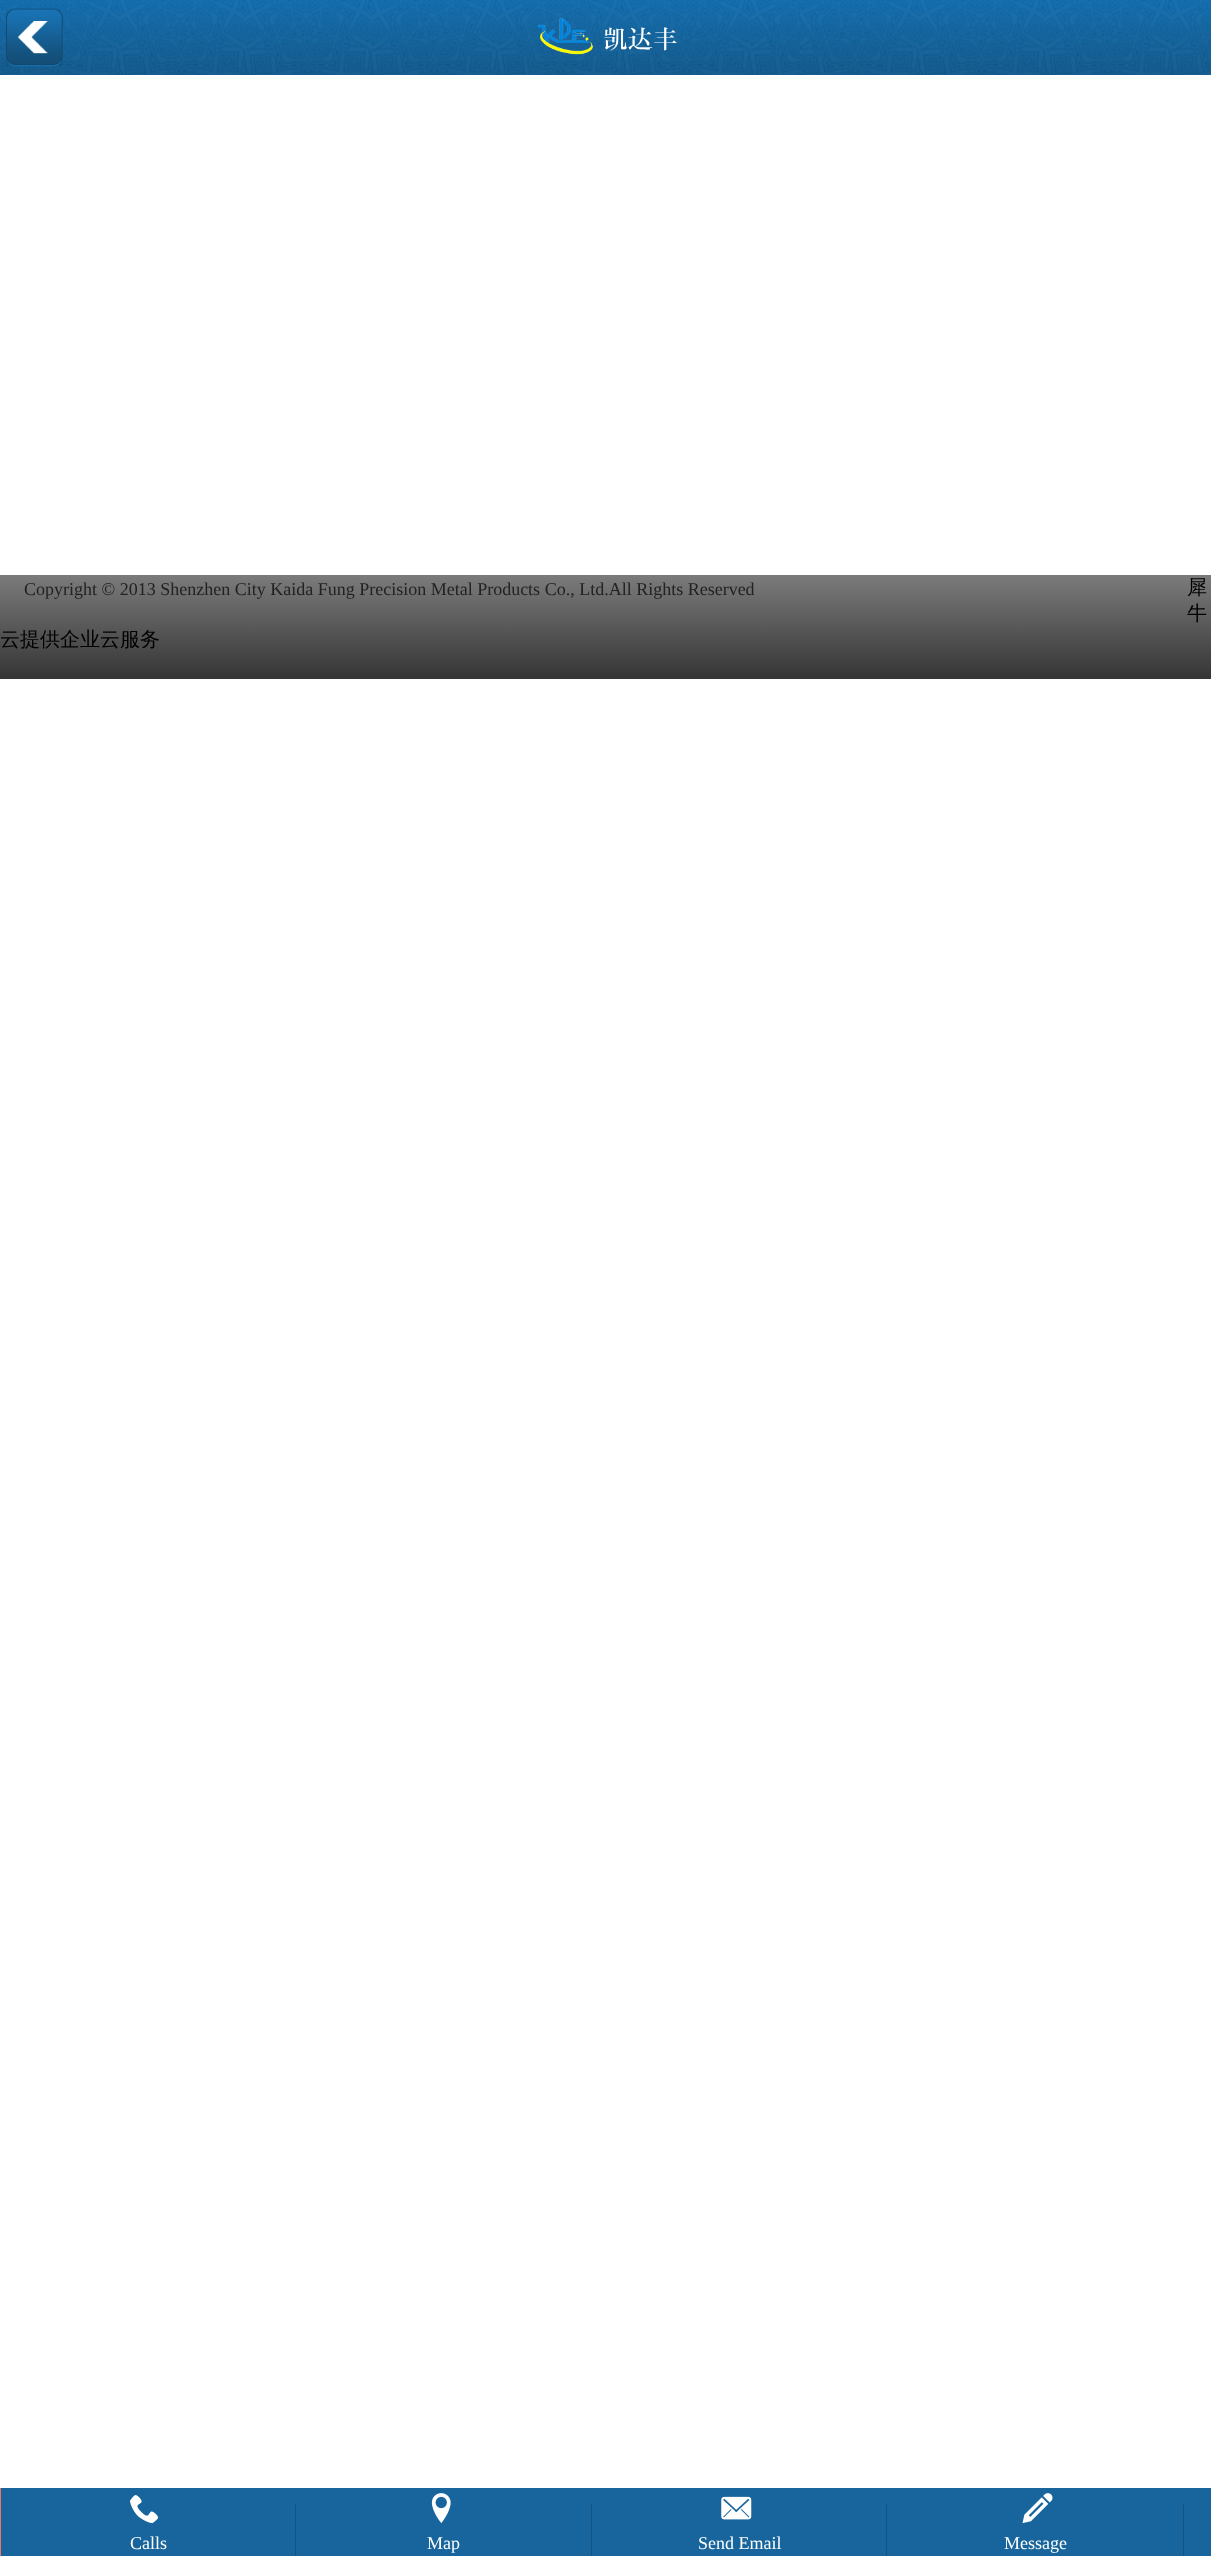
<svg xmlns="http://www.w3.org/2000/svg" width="1211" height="2556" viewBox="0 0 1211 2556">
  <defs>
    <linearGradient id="g1" gradientUnits="userSpaceOnUse" x1="606" y1="679" x2="606" y2="575"><stop offset="0" stop-color="rgb(53,53,53)"/><stop offset="1" stop-color="rgb(123,123,123)"/></linearGradient>
  </defs>
  <rect width="100%" height="100%" fill="rgb(255,255,255)"/>
  <image x="0" y="0" width="1211" height="75" href="pic1.png"/>
  <image x="528" y="18" width="149" height="37" href="pic2.png"/>
  <image x="6" y="8" width="57" height="59" href="pic3.png"/>
  <rect x="0" y="575" width="1211" height="104" fill="url(#g1)"/>
  <text x="24" y="595" font-family="Liberation Serif" font-size="18" fill="rgb(34,34,34)">Copyright © 2013 Shenzhen City Kaida Fung Precision Metal Products Co., Ltd.All Rights Reserved</text>
  <g font-family="WenQuanYi Zen Hei" font-size="20" font-weight="500" fill="rgb(0,0,0)">
    <text>
      <tspan x="1187" y="594">犀</tspan>
      <tspan x="1187" y="620">牛</tspan>
    </text>
    <text x="0" y="646">云提供企业云服务</text>
  </g>
  <rect x="1" y="2488" width="1210" height="68" fill="rgb(23,101,156)"/>
  <rect x="0" y="2488" width="1" height="68" fill="rgb(238,117,106)"/>
  <rect x="295" y="2504" width="1" height="52" fill="rgb(18,83,129)"/>
  <image x="130" y="2495" width="29" height="29" href="pic4.png"/>
  <text x="130" y="2549" font-family="Liberation Serif" font-size="18" fill="rgb(255,255,255)">Calls</text>
  <rect x="591" y="2504" width="1" height="52" fill="rgb(18,83,129)"/>
  <image x="431" y="2493" width="20" height="30" href="pic5.png"/>
  <text x="427" y="2549" font-family="Liberation Serif" font-size="18" fill="rgb(255,255,255)">Map</text>
  <rect x="886" y="2504" width="1" height="52" fill="rgb(18,83,129)"/>
  <image x="721" y="2496" width="31" height="24" href="pic6.png"/>
  <text x="698" y="2549" font-family="Liberation Serif" font-size="18" fill="rgb(255,255,255)">Send Email</text>
  <rect x="1183" y="2504" width="1" height="52" fill="rgb(18,83,129)"/>
  <image x="1022" y="2493" width="31" height="31" href="pic7.png"/>
  <text x="1004" y="2549" font-family="Liberation Serif" font-size="18" fill="rgb(255,255,255)">Message</text>
</svg>
